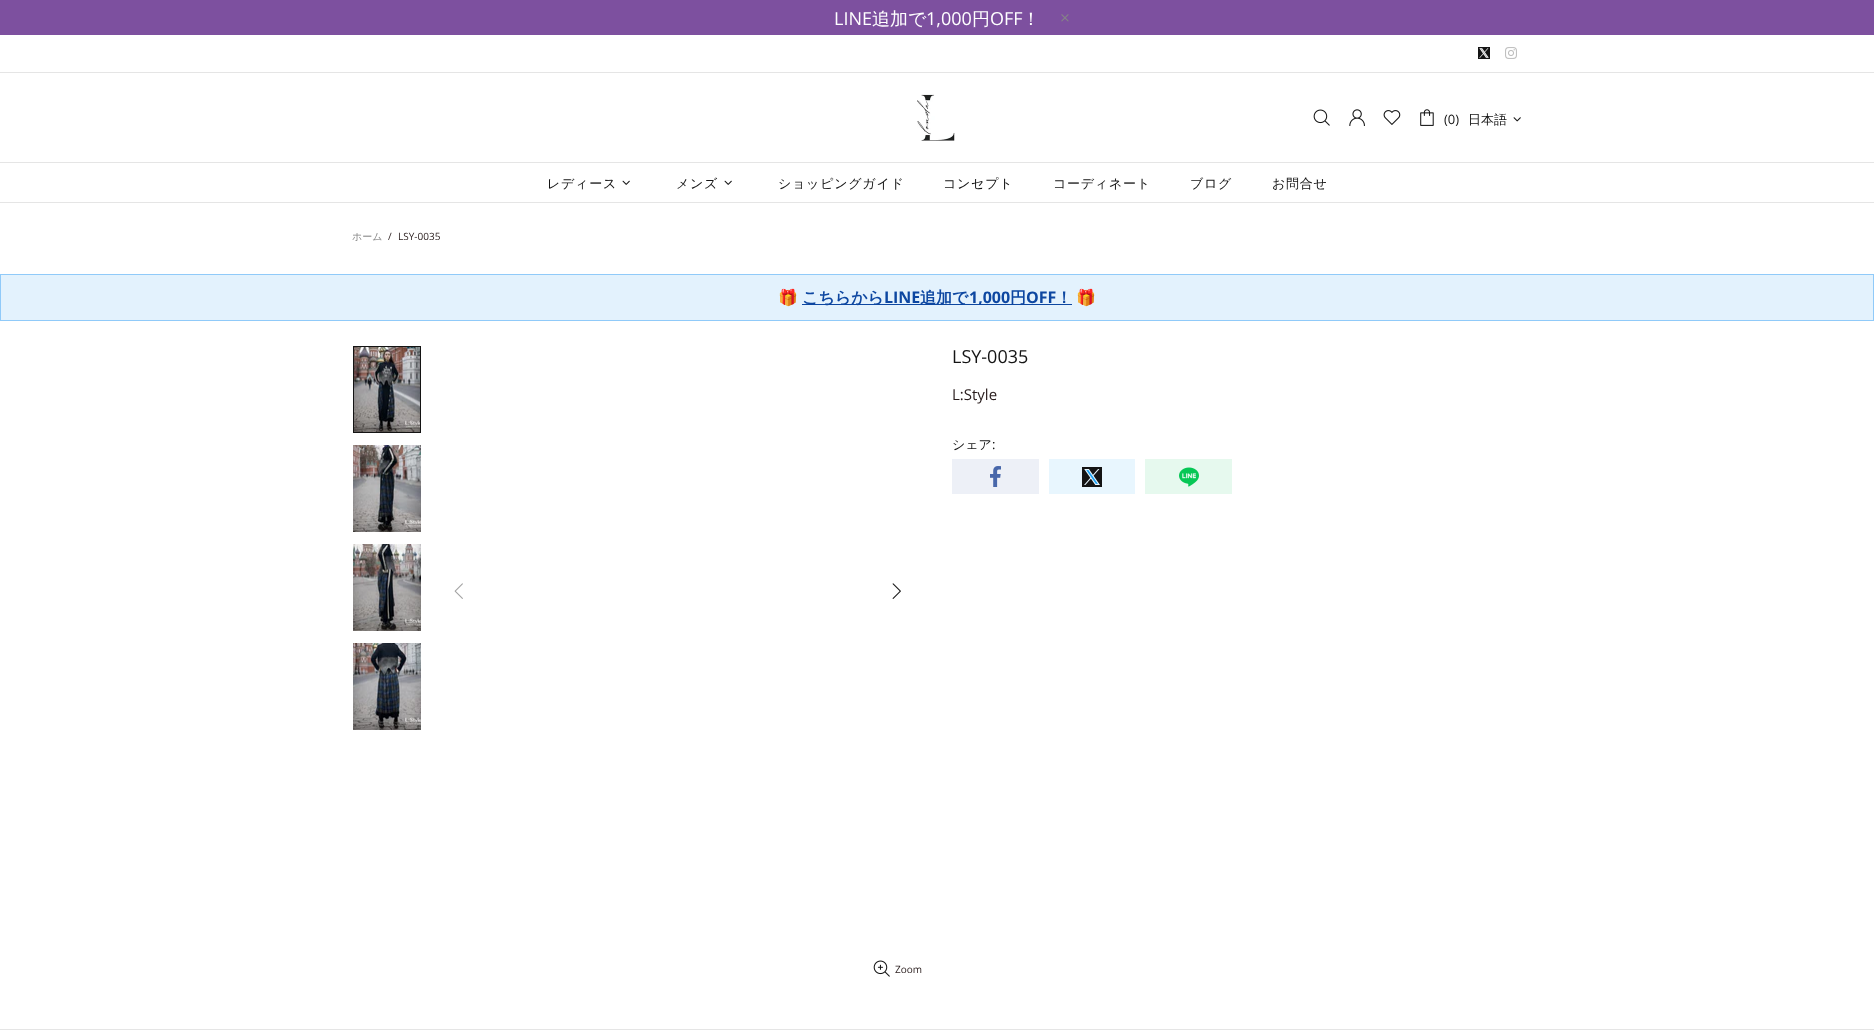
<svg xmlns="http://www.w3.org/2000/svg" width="1874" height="1036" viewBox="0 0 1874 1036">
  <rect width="100%" height="100%" fill="rgb(255,255,255)"/>
  <rect x="0" y="0" width="1874" height="35" fill="rgb(125,80,159)"/>
  <text x="834" y="25" font-family="Open Sans" font-size="18" fill="rgb(255,255,255)">LINE</text>
  <text x="872" y="25" font-family="WenQuanYi Zen Hei" font-size="18" font-weight="500" fill="rgb(255,255,255)">追加で</text>
  <text x="926" y="25" font-family="Open Sans" font-size="18" fill="rgb(255,255,255)">1,000</text>
  <text x="972" y="25" font-family="WenQuanYi Zen Hei" font-size="18" font-weight="500" fill="rgb(255,255,255)">円</text>
  <text x="990" y="25" font-family="Open Sans" font-size="18" fill="rgb(255,255,255)">OFF</text>
  <text x="1022" y="25" font-family="WenQuanYi Zen Hei" font-size="18" font-weight="500" fill="rgb(255,255,255)">！</text>
  <image x="1061" y="14" width="8" height="8" href="pic1.png"/>
  <rect x="0" y="72" width="1874" height="1" fill="rgb(229,229,229)"/>
  <image x="1478" y="47" width="12" height="12" href="pic2.png"/>
  <image x="1505" y="47" width="12" height="12" href="pic3.png"/>
  <rect x="0" y="162" width="1874" height="1" fill="rgb(229,229,229)"/>
  <image x="917" y="94" width="38" height="47" href="pic4.png"/>
  <image x="1313" y="109" width="17" height="17" href="pic5.png"/>
  <image x="1349" y="109" width="16" height="17" href="pic6.png"/>
  <image x="1383" y="110" width="18" height="15" href="pic7.png"/>
  <image x="1420" y="109" width="14" height="17" href="pic8.png"/>
  <text x="1444" y="124" font-family="Open Sans" font-size="13" fill="rgb(20,20,20)">(0)</text>
  <text x="1468" y="124" font-family="WenQuanYi Zen Hei" font-size="13" font-weight="500" fill="rgb(20,20,20)">日本語</text>
  <image x="1513" y="117" width="8" height="5" href="pic9.png"/>
  <rect x="0" y="202" width="1874" height="1" fill="rgb(229,229,229)"/>
  <text x="547" y="188" font-family="WenQuanYi Zen Hei" font-size="13" font-weight="500" letter-spacing="0.75" fill="rgb(20,20,20)">レディース</text>
  <image x="622" y="180" width="8" height="5" href="pic10.png"/>
  <text x="676" y="188" font-family="WenQuanYi Zen Hei" font-size="13" font-weight="500" letter-spacing="0.75" fill="rgb(20,20,20)">メンズ</text>
  <image x="724" y="180" width="8" height="5" href="pic10.png"/>
  <g font-family="WenQuanYi Zen Hei" font-size="13" font-weight="500" letter-spacing="0.75" fill="rgb(20,20,20)">
    <text x="778" y="188">ショッピングガイド</text>
    <text x="943" y="188">コンセプト</text>
    <text x="1053" y="188">コーディネート</text>
    <text x="1190" y="188">ブログ</text>
    <text x="1272" y="188">お問合せ</text>
  </g>
  <text x="352" y="240" font-family="WenQuanYi Zen Hei" font-size="10" font-weight="500" fill="rgb(133,133,133)">ホーム</text>
  <g font-family="Open Sans" font-size="10" fill="rgb(40,28,28)">
    <text x="388" y="240">/</text>
    <text x="398" y="240">LSY-0035</text>
  </g>
  <rect x="0.5" y="274.5" width="1873" height="46" fill="rgb(227,242,253)" stroke="rgb(144,202,249)"/>
  <text x="778" y="303" font-family="Noto Color Emoji" font-size="16" font-weight="bold" fill="rgb(13,71,161)">🎁</text>
  <rect x="802" y="304" width="270" height="1" fill="rgb(13,71,161)"/>
  <text x="802" y="303" font-family="WenQuanYi Zen Hei" font-size="16" font-weight="bold" fill="rgb(13,71,161)">こちらから</text>
  <text x="884" y="303" font-family="Open Sans" font-size="16" font-weight="bold" fill="rgb(13,71,161)">LINE</text>
  <text x="920" y="303" font-family="WenQuanYi Zen Hei" font-size="16" font-weight="bold" fill="rgb(13,71,161)">追加で</text>
  <text x="969" y="303" font-family="Open Sans" font-size="16" font-weight="bold" fill="rgb(13,71,161)">1,000</text>
  <text x="1010" y="303" font-family="WenQuanYi Zen Hei" font-size="16" font-weight="bold" fill="rgb(13,71,161)">円</text>
  <text x="1026" y="303" font-family="Open Sans" font-size="16" font-weight="bold" fill="rgb(13,71,161)">OFF</text>
  <text x="1056" y="303" font-family="WenQuanYi Zen Hei" font-size="16" font-weight="bold" fill="rgb(13,71,161)">！</text>
  <text x="1076" y="303" font-family="Noto Color Emoji" font-size="16" font-weight="bold" fill="rgb(13,71,161)">🎁</text>
  <text x="952" y="363" font-family="Open Sans" font-size="18" fill="rgb(20,20,20)">LSY-0035</text>
  <text x="952" y="400" font-family="Open Sans" font-size="15" fill="rgb(40,28,28)">L:Style</text>
  <text x="952" y="449" font-family="WenQuanYi Zen Hei" font-size="13" font-weight="500" fill="rgb(20,20,20)">シェア</text>
  <text x="992" y="449" font-family="Open Sans" font-size="13" fill="rgb(20,20,20)">:</text>
  <rect x="952" y="459" width="87" height="35" fill="rgb(237,240,247)"/>
  <image x="990" y="466" width="11" height="21" href="pic11.png"/>
  <rect x="1049" y="459" width="86" height="35" fill="rgb(232,246,254)"/>
  <image x="1082" y="467" width="20" height="20" href="pic12.png"/>
  <rect x="1145" y="459" width="87" height="35" fill="rgb(230,249,238)"/>
  <image x="1179" y="467" width="20" height="20" href="pic13.png"/>
  <image x="354" y="347" width="66" height="85" href="pic14.png"/>
  <rect x="353.5" y="346.5" width="67" height="86" fill="none" stroke="rgb(20,20,20)"/>
  <image x="353" y="445" width="68" height="87" href="pic15.png"/>
  <image x="353" y="544" width="68" height="87" href="pic16.png"/>
  <image x="353" y="643" width="68" height="87" href="pic17.png"/>
  <image x="454" y="583" width="9" height="16" href="pic18.png"/>
  <image x="892" y="583" width="9" height="16" href="pic19.png"/>
  <image x="873" y="960" width="17" height="17" href="pic20.png"/>
  <text x="895" y="973" font-family="Open Sans" font-size="10" fill="rgb(40,28,28)">Zoom</text>
  <rect x="0" y="1029" width="1874" height="1" fill="rgb(229,229,229)"/>
</svg>
